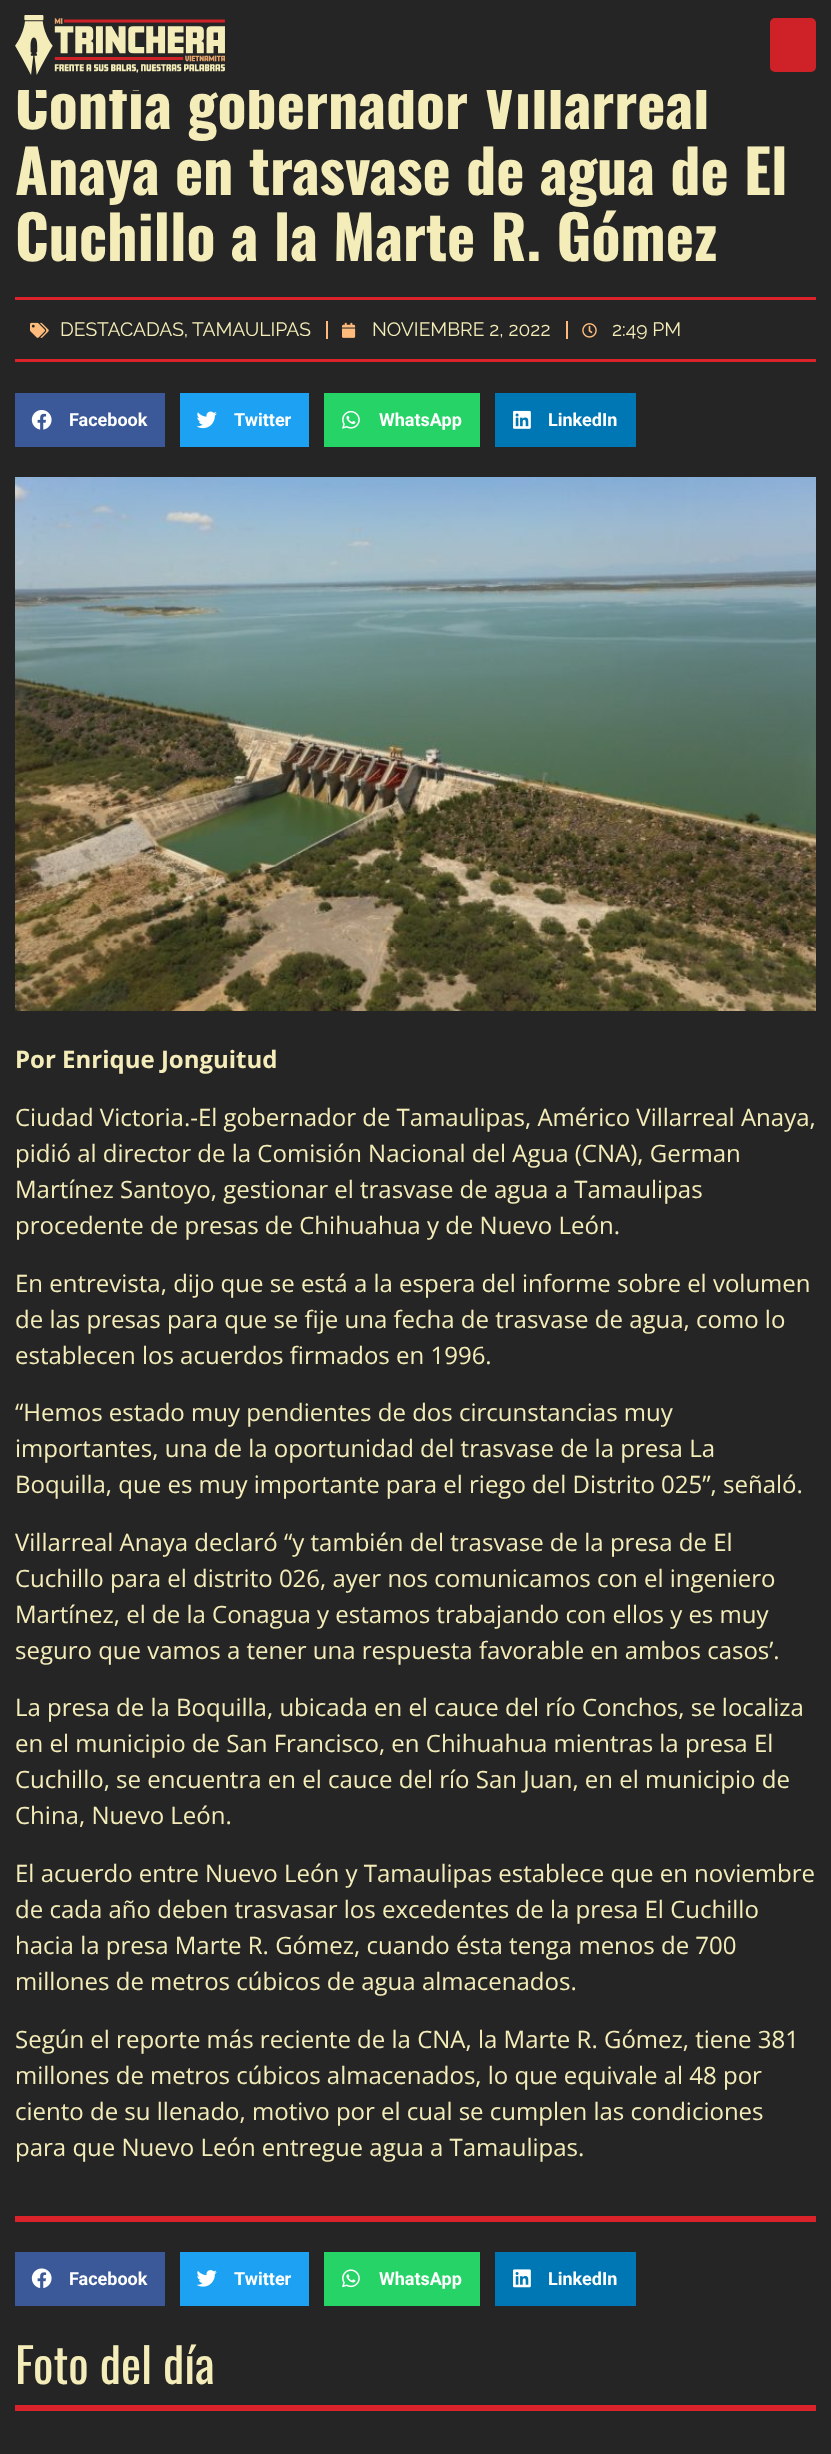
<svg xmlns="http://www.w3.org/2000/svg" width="831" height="2454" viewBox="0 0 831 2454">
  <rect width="100%" height="100%" fill="rgb(37,37,37)"/>
  <text x="15" y="129" font-family="Oswald" font-size="60" font-weight="bold" fill="rgb(244,237,185)">Confía gobernador Villarreal</text>
  <rect x="18" y="78" width="689" height="12" fill="rgb(37,37,37)"/>
  <image x="15" y="15" width="210" height="60" href="pic1.png"/>
  <rect x="770" y="18" width="46" height="54" rx="5" fill="rgb(206,33,40)"/>
  <g font-family="Oswald" font-size="60" font-weight="bold" fill="rgb(244,237,185)">
    <text>
      <tspan x="15" y="195">Anaya en trasvase de agua de El</tspan>
      <tspan x="15" y="261">Cuchillo a la Marte R. Gómez</tspan>
    </text>
  </g>
  <rect x="15" y="297" width="801" height="3" fill="rgb(218,35,42)"/>
  <rect x="15" y="359" width="801" height="3" fill="rgb(218,35,42)"/>
  <image x="30" y="322" width="19" height="16" href="pic2.png"/>
  <g font-family="Raleway" font-size="19.25" fill="rgb(244,237,185)">
    <text x="60" y="336">DESTACADAS,</text>
    <text x="192" y="336">TAMAULIPAS</text>
  </g>
  <rect x="326" y="321" width="2" height="18" fill="rgb(255,187,124)"/>
  <image x="342" y="322" width="14" height="16" href="pic3.png"/>
  <text x="372" y="336" font-family="Raleway" font-size="19.25" fill="rgb(244,237,185)">NOVIEMBRE 2, 2022</text>
  <rect x="566" y="321" width="2" height="18" fill="rgb(255,187,124)"/>
  <image x="582" y="323" width="15" height="15" href="pic4.png"/>
  <text x="612" y="336" font-family="Raleway" font-size="19.25" fill="rgb(244,237,185)">2:49 PM</text>
  <rect x="15" y="393" width="150" height="54" fill="rgb(59,89,152)"/>
  <image x="31" y="410" width="21" height="20" href="pic5.png"/>
  <text x="69" y="426" font-family="Roboto" font-size="18" font-weight="bold" fill="rgb(255,255,255)">Facebook</text>
  <rect x="180" y="393" width="129" height="54" fill="rgb(29,161,242)"/>
  <image x="196" y="411" width="21" height="18" href="pic6.png"/>
  <text x="234" y="426" font-family="Roboto" font-size="18" font-weight="bold" fill="rgb(255,255,255)">Twitter</text>
  <rect x="324" y="393" width="156" height="54" fill="rgb(37,211,102)"/>
  <image x="342" y="410" width="18" height="19" href="pic7.png"/>
  <text x="379" y="426" font-family="Roboto" font-size="18" font-weight="bold" fill="rgb(255,255,255)">WhatsApp</text>
  <rect x="495" y="393" width="141" height="54" fill="rgb(0,119,181)"/>
  <image x="513" y="410" width="18" height="19" href="pic8.png"/>
  <text x="548" y="426" font-family="Roboto" font-size="18" font-weight="bold" fill="rgb(255,255,255)">LinkedIn</text>
  <image x="15" y="477" width="801" height="534" href="pic9.png"/>
  <rect x="15" y="2216" width="801" height="6" fill="rgb(218,35,42)"/>
  <text x="15" y="1068" font-family="Open Sans" font-size="24" font-weight="bold" fill="rgb(244,237,185)">Por Enrique Jonguitud</text>
  <g font-family="Open Sans" font-size="24" fill="rgb(244,237,185)">
    <text>
      <tspan x="15" y="1126">Ciudad Victoria.-El gobernador de Tamaulipas, Américo Villarreal Anaya,</tspan>
      <tspan x="15" y="1162">pidió al director de la Comisión Nacional del Agua (CNA), German</tspan>
      <tspan x="15" y="1198">Martínez Santoyo, gestionar el trasvase de agua a Tamaulipas</tspan>
      <tspan x="15" y="1234">procedente de presas de Chihuahua y de Nuevo León.</tspan>
    </text>
    <text>
      <tspan x="15" y="1292">En entrevista, dijo que se está a la espera del informe sobre el volumen</tspan>
      <tspan x="15" y="1328">de las presas para que se fije una fecha de trasvase de agua, como lo</tspan>
      <tspan x="15" y="1364">establecen los acuerdos firmados en 1996.</tspan>
    </text>
    <text>
      <tspan x="15" y="1421">“Hemos estado muy pendientes de dos circunstancias muy</tspan>
      <tspan x="15" y="1457">importantes, una de la oportunidad del trasvase de la presa La</tspan>
      <tspan x="15" y="1493">Boquilla, que es muy importante para el riego del Distrito 025”, señaló.</tspan>
    </text>
    <text>
      <tspan x="15" y="1551">Villarreal Anaya declaró “y también del trasvase de la presa de El</tspan>
      <tspan x="15" y="1587">Cuchillo para el distrito 026, ayer nos comunicamos con el ingeniero</tspan>
      <tspan x="15" y="1623">Martínez, el de la Conagua y estamos trabajando con ellos y es muy</tspan>
      <tspan x="15" y="1659">seguro que vamos a tener una respuesta favorable en ambos casos’.</tspan>
    </text>
    <text>
      <tspan x="15" y="1716">La presa de la Boquilla, ubicada en el cauce del río Conchos, se localiza</tspan>
      <tspan x="15" y="1752">en el municipio de San Francisco, en Chihuahua mientras la presa El</tspan>
      <tspan x="15" y="1788">Cuchillo, se encuentra en el cauce del río San Juan, en el municipio de</tspan>
      <tspan x="15" y="1824">China, Nuevo León.</tspan>
    </text>
    <text>
      <tspan x="15" y="1882">El acuerdo entre Nuevo León y Tamaulipas establece que en noviembre</tspan>
      <tspan x="15" y="1918">de cada año deben trasvasar los excedentes de la presa El Cuchillo</tspan>
      <tspan x="15" y="1954">hacia la presa Marte R. Gómez, cuando ésta tenga menos de 700</tspan>
      <tspan x="15" y="1990">millones de metros cúbicos de agua almacenados.</tspan>
    </text>
    <text>
      <tspan x="15" y="2048">Según el reporte más reciente de la CNA, la Marte R. Gómez, tiene 381</tspan>
      <tspan x="15" y="2084">millones de metros cúbicos almacenados, lo que equivale al 48 por</tspan>
      <tspan x="15" y="2120">ciento de su llenado, motivo por el cual se cumplen las condiciones</tspan>
      <tspan x="15" y="2156">para que Nuevo León entregue agua a Tamaulipas.</tspan>
    </text>
  </g>
  <rect x="15" y="2252" width="150" height="54" fill="rgb(59,89,152)"/>
  <image x="31" y="2268" width="21" height="21" href="pic10.png"/>
  <text x="69" y="2285" font-family="Roboto" font-size="18" font-weight="bold" fill="rgb(255,255,255)">Facebook</text>
  <rect x="180" y="2252" width="129" height="54" fill="rgb(29,161,242)"/>
  <image x="196" y="2270" width="21" height="17" href="pic11.png"/>
  <text x="234" y="2285" font-family="Roboto" font-size="18" font-weight="bold" fill="rgb(255,255,255)">Twitter</text>
  <rect x="324" y="2252" width="156" height="54" fill="rgb(37,211,102)"/>
  <image x="342" y="2269" width="18" height="19" href="pic12.png"/>
  <text x="379" y="2285" font-family="Roboto" font-size="18" font-weight="bold" fill="rgb(255,255,255)">WhatsApp</text>
  <rect x="495" y="2252" width="141" height="54" fill="rgb(0,119,181)"/>
  <image x="513" y="2269" width="18" height="19" href="pic13.png"/>
  <text x="548" y="2285" font-family="Roboto" font-size="18" font-weight="bold" fill="rgb(255,255,255)">LinkedIn</text>
  <rect x="15" y="2405" width="801" height="6" fill="rgb(218,35,42)"/>
  <text x="15" y="2384" font-family="Oswald" font-size="48" fill="rgb(244,237,185)">Foto del día</text>
</svg>
